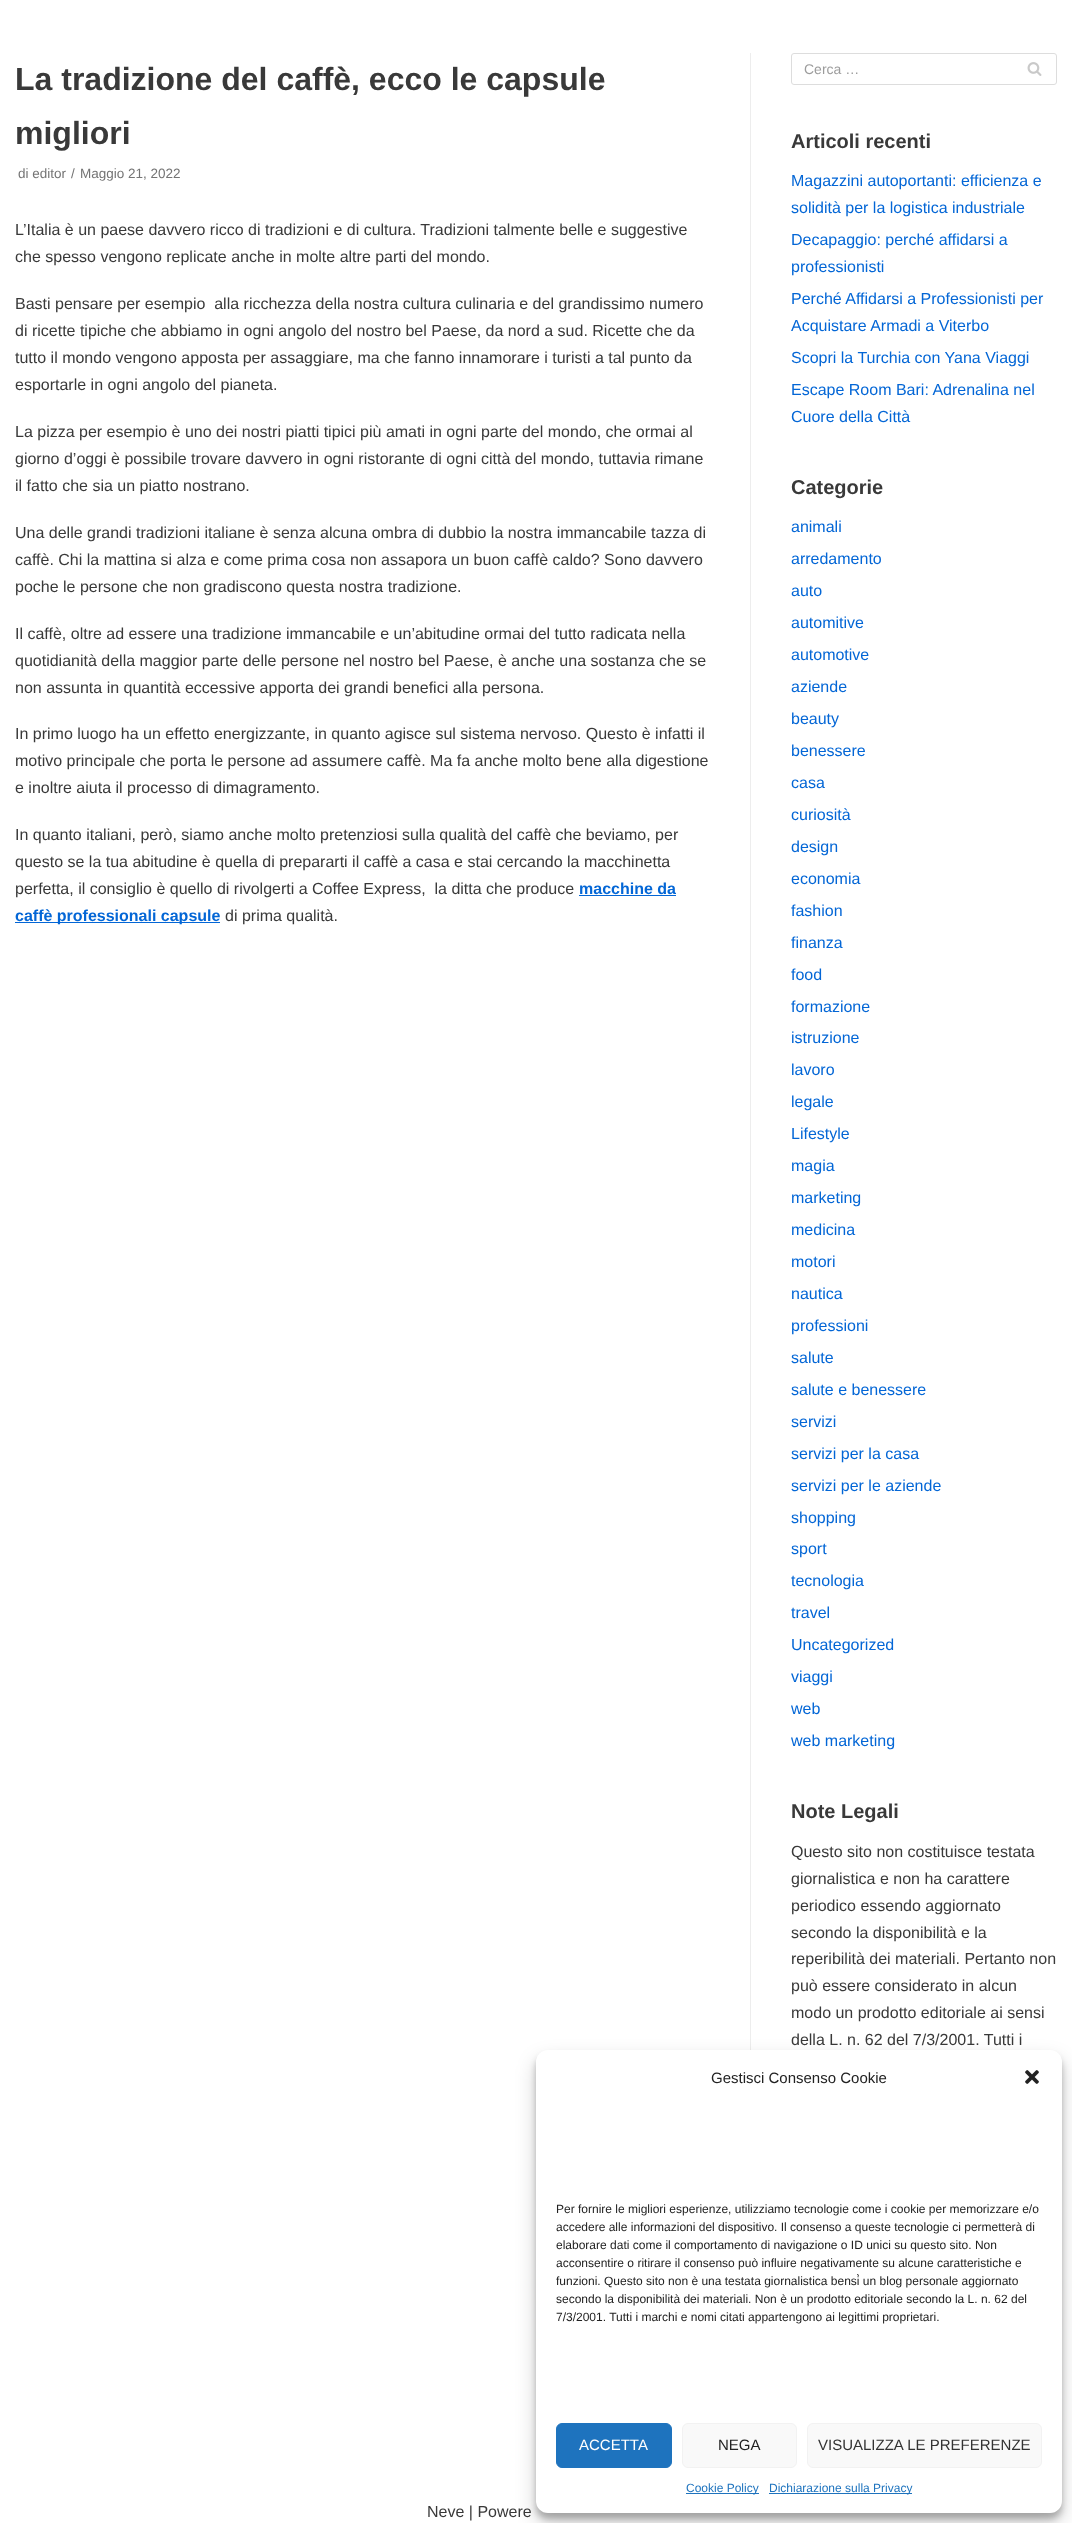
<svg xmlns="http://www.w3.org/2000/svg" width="1072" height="2523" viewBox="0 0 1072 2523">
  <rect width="100%" height="100%" fill="rgb(255,255,255)"/>
  <g font-family="Liberation Sans" font-size="32" font-weight="bold" fill="rgb(57,57,57)">
    <text>
      <tspan x="15" y="90">La tradizione del caffè, ecco le capsule</tspan>
      <tspan x="15" y="144">migliori</tspan>
    </text>
  </g>
  <g font-family="Liberation Sans" font-size="13.5" fill="rgb(116,116,116)">
    <text x="18" y="178">di editor</text>
    <text x="71" y="178">/</text>
    <text x="80" y="178">Maggio 21, 2022</text>
  </g>
  <g font-family="Liberation Sans" font-size="16" fill="rgb(57,57,57)">
    <text>
      <tspan x="15" y="235">L’Italia è un paese davvero ricco di tradizioni e di cultura. Tradizioni talmente belle e suggestive</tspan>
      <tspan x="15" y="262">che spesso vengono replicate anche in molte altre parti del mondo.</tspan>
    </text>
    <text xml:space="preserve"><tspan x="15" y="309">Basti pensare per esempio  alla ricchezza della nostra cultura culinaria e del grandissimo numero</tspan><tspan x="15" y="336">di ricette tipiche che abbiamo in ogni angolo del nostro bel Paese, da nord a sud. Ricette che da</tspan><tspan x="15" y="363">tutto il mondo vengono apposta per assaggiare, ma che fanno innamorare i turisti a tal punto da</tspan><tspan x="15" y="390">esportarle in ogni angolo del pianeta.</tspan></text>
    <text>
      <tspan x="15" y="437">La pizza per esempio è uno dei nostri piatti tipici più amati in ogni parte del mondo, che ormai al</tspan>
      <tspan x="15" y="464">giorno d’oggi è possibile trovare davvero in ogni ristorante di ogni città del mondo, tuttavia rimane</tspan>
      <tspan x="15" y="491">il fatto che sia un piatto nostrano.</tspan>
    </text>
    <text>
      <tspan x="15" y="538">Una delle grandi tradizioni italiane è senza alcuna ombra di dubbio la nostra immancabile tazza di</tspan>
      <tspan x="15" y="565">caffè. Chi la mattina si alza e come prima cosa non assapora un buon caffè caldo? Sono davvero</tspan>
      <tspan x="15" y="592">poche le persone che non gradiscono questa nostra tradizione.</tspan>
    </text>
    <text>
      <tspan x="15" y="639">Il caffè, oltre ad essere una tradizione immancabile e un’abitudine ormai del tutto radicata nella</tspan>
      <tspan x="15" y="666">quotidianità della maggior parte delle persone nel nostro bel Paese, è anche una sostanza che se</tspan>
      <tspan x="15" y="693">non assunta in quantità eccessive apporta dei grandi benefici alla persona.</tspan>
    </text>
    <text>
      <tspan x="15" y="739">In primo luogo ha un effetto energizzante, in quanto agisce sul sistema nervoso. Questo è infatti il</tspan>
      <tspan x="15" y="766">motivo principale che porta le persone ad assumere caffè. Ma fa anche molto bene alla digestione</tspan>
      <tspan x="15" y="793">e inoltre aiuta il processo di dimagramento.</tspan>
    </text>
    <text xml:space="preserve"><tspan x="15" y="840">In quanto italiani, però, siamo anche molto pretenziosi sulla qualità del caffè che beviamo, per</tspan><tspan x="15" y="867">questo se la tua abitudine è quella di prepararti il caffè a casa e stai cercando la macchinetta</tspan><tspan x="15" y="894">perfetta, il consiglio è quello di rivolgerti a Coffee Express,  la ditta che produce</tspan></text>
  </g>
  <text x="579" y="894" font-family="Liberation Sans" font-size="16" font-weight="bold" fill="rgb(3,102,214)">macchine da</text>
  <rect x="579" y="895" width="97" height="1" fill="rgb(3,102,214)"/>
  <rect x="15" y="922" width="205" height="1" fill="rgb(3,102,214)"/>
  <text x="15" y="921" font-family="Liberation Sans" font-size="16" font-weight="bold" fill="rgb(3,102,214)">caffè professionali capsule</text>
  <text x="225" y="921" font-family="Liberation Sans" font-size="16" fill="rgb(57,57,57)">di prima qualità.</text>
  <rect x="750" y="53" width="1" height="1997" fill="rgb(237,237,237)"/>
  <rect x="791.5" y="53.5" width="265" height="31" rx="2.5" fill="none" stroke="rgb(221,221,221)"/>
  <text x="804" y="74" font-family="Liberation Sans" font-size="14" fill="rgb(156,156,156)">Cerca …</text>
  <image x="1027" y="62" width="15" height="14" href="pic1.png"/>
  <text x="791" y="148" font-family="Liberation Sans" font-size="20" font-weight="bold" fill="rgb(57,57,57)">Articoli recenti</text>
  <g font-family="Liberation Sans" font-size="16" fill="rgb(3,102,214)">
    <text>
      <tspan x="791" y="186">Magazzini autoportanti: efficienza e</tspan>
      <tspan x="791" y="213">solidità per la logistica industriale</tspan>
    </text>
    <text>
      <tspan x="791" y="245">Decapaggio: perché affidarsi a</tspan>
      <tspan x="791" y="272">professionisti</tspan>
    </text>
    <text>
      <tspan x="791" y="304">Perché Affidarsi a Professionisti per</tspan>
      <tspan x="791" y="331">Acquistare Armadi a Viterbo</tspan>
    </text>
    <text x="791" y="363">Scopri la Turchia con Yana Viaggi</text>
    <text>
      <tspan x="791" y="395">Escape Room Bari: Adrenalina nel</tspan>
      <tspan x="791" y="422">Cuore della Città</tspan>
    </text>
  </g>
  <text x="791" y="494" font-family="Liberation Sans" font-size="20" font-weight="bold" fill="rgb(57,57,57)">Categorie</text>
  <g font-family="Liberation Sans" font-size="16" fill="rgb(3,102,214)">
    <text x="791" y="532">animali</text>
    <text x="791" y="564">arredamento</text>
    <text x="791" y="596">auto</text>
    <text x="791" y="628">automitive</text>
    <text x="791" y="660">automotive</text>
    <text x="791" y="692">aziende</text>
    <text x="791" y="724">beauty</text>
    <text x="791" y="756">benessere</text>
    <text x="791" y="788">casa</text>
    <text x="791" y="820">curiosità</text>
    <text x="791" y="852">design</text>
    <text x="791" y="884">economia</text>
    <text x="791" y="916">fashion</text>
    <text x="791" y="948">finanza</text>
    <text x="791" y="980">food</text>
    <text>
      <tspan x="791" y="1012">formazione</tspan>
      <tspan x="791" y="1043">istruzione</tspan>
    </text>
    <text x="791" y="1075">lavoro</text>
    <text x="791" y="1107">legale</text>
    <text x="791" y="1139">Lifestyle</text>
    <text x="791" y="1171">magia</text>
    <text x="791" y="1203">marketing</text>
    <text x="791" y="1235">medicina</text>
    <text x="791" y="1267">motori</text>
    <text x="791" y="1299">nautica</text>
    <text x="791" y="1331">professioni</text>
    <text x="791" y="1363">salute</text>
    <text x="791" y="1395">salute e benessere</text>
    <text x="791" y="1427">servizi</text>
    <text x="791" y="1459">servizi per la casa</text>
    <text x="791" y="1491">servizi per le aziende</text>
    <text>
      <tspan x="791" y="1523">shopping</tspan>
      <tspan x="791" y="1554">sport</tspan>
    </text>
    <text x="791" y="1586">tecnologia</text>
    <text x="791" y="1618">travel</text>
    <text x="791" y="1650">Uncategorized</text>
    <text x="791" y="1682">viaggi</text>
    <text x="791" y="1714">web</text>
    <text x="791" y="1746">web marketing</text>
  </g>
  <text x="791" y="1818" font-family="Liberation Sans" font-size="20" font-weight="bold" fill="rgb(57,57,57)">Note Legali</text>
  <g font-family="Liberation Sans" font-size="16" fill="rgb(57,57,57)">
    <text>
      <tspan x="791" y="1857">Questo sito non costituisce testata</tspan>
      <tspan x="791" y="1884">giornalistica e non ha carattere</tspan>
      <tspan x="791" y="1911">periodico essendo aggiornato</tspan>
      <tspan x="791" y="1938">secondo la disponibilità e la</tspan>
      <tspan x="791" y="1964">reperibilità dei materiali. Pertanto non</tspan>
      <tspan x="791" y="1991">può essere considerato in alcun</tspan>
      <tspan x="791" y="2018">modo un prodotto editoriale ai sensi</tspan>
      <tspan x="791" y="2045">della L. n. 62 del 7/3/2001. Tutti i</tspan>
    </text>
    <text x="427" y="2517">Neve | Powere</text>
  </g>
  <rect x="536" y="2056" width="526" height="463" rx="12" fill="rgba(0,0,0,0.23)" filter="blur(3px)"/>
  <rect x="536" y="2060" width="526" height="463" rx="12" fill="rgba(0,0,0,0.19)" filter="blur(10px)"/>
  <rect x="536" y="2050" width="526" height="463" rx="12" fill="rgb(255,255,255)"/>
  <text x="711" y="2083" font-family="Liberation Sans" font-size="15" fill="rgb(34,34,34)">Gestisci Consenso Cookie</text>
  <image x="1025" y="2070" width="14" height="14" href="pic2.png"/>
  <g font-family="Liberation Sans" font-size="12" fill="rgb(34,34,34)">
    <text>
      <tspan x="556" y="2213">Per fornire le migliori esperienze, utilizziamo tecnologie come i cookie per memorizzare e/o</tspan>
      <tspan x="556" y="2231">accedere alle informazioni del dispositivo. Il consenso a queste tecnologie ci permetterà di</tspan>
      <tspan x="556" y="2249">elaborare dati come il comportamento di navigazione o ID unici su questo sito. Non</tspan>
      <tspan x="556" y="2267">acconsentire o ritirare il consenso può influire negativamente su alcune caratteristiche e</tspan>
      <tspan x="556" y="2285">funzioni. Questo sito non è una testata giornalistica bensì un blog personale aggiornato</tspan>
      <tspan x="556" y="2303">secondo la disponibilità dei materiali. Non è un prodotto editoriale secondo la L. n. 62 del</tspan>
      <tspan x="556" y="2321">7/3/2001. Tutti i marchi e nomi citati appartengono ai legittimi proprietari.</tspan>
    </text>
  </g>
  <rect x="556.5" y="2423.5" width="115" height="44" rx="5.5" fill="rgb(30,115,190)" stroke="rgb(30,115,190)"/>
  <text x="579" y="2450" font-family="Liberation Sans" font-size="15" fill="rgb(255,255,255)">ACCETTA</text>
  <rect x="682.5" y="2423.5" width="114" height="44" rx="5.5" fill="rgb(249,249,249)" stroke="rgb(242,242,242)"/>
  <text x="718" y="2450" font-family="Liberation Sans" font-size="15" fill="rgb(34,34,34)">NEGA</text>
  <rect x="807.5" y="2423.5" width="234" height="44" rx="5.5" fill="rgb(249,249,249)" stroke="rgb(242,242,242)"/>
  <text x="818" y="2450" font-family="Liberation Sans" font-size="15" fill="rgb(51,51,51)">VISUALIZZA LE PREFERENZE</text>
  <rect x="686" y="2493" width="73" height="1" fill="rgb(30,115,190)"/>
  <text x="686" y="2492" font-family="Liberation Sans" font-size="12" fill="rgb(30,115,190)">Cookie Policy</text>
  <rect x="769" y="2493" width="143" height="1" fill="rgb(30,115,190)"/>
  <text x="769" y="2492" font-family="Liberation Sans" font-size="12" fill="rgb(30,115,190)">Dichiarazione sulla Privacy</text>
</svg>
